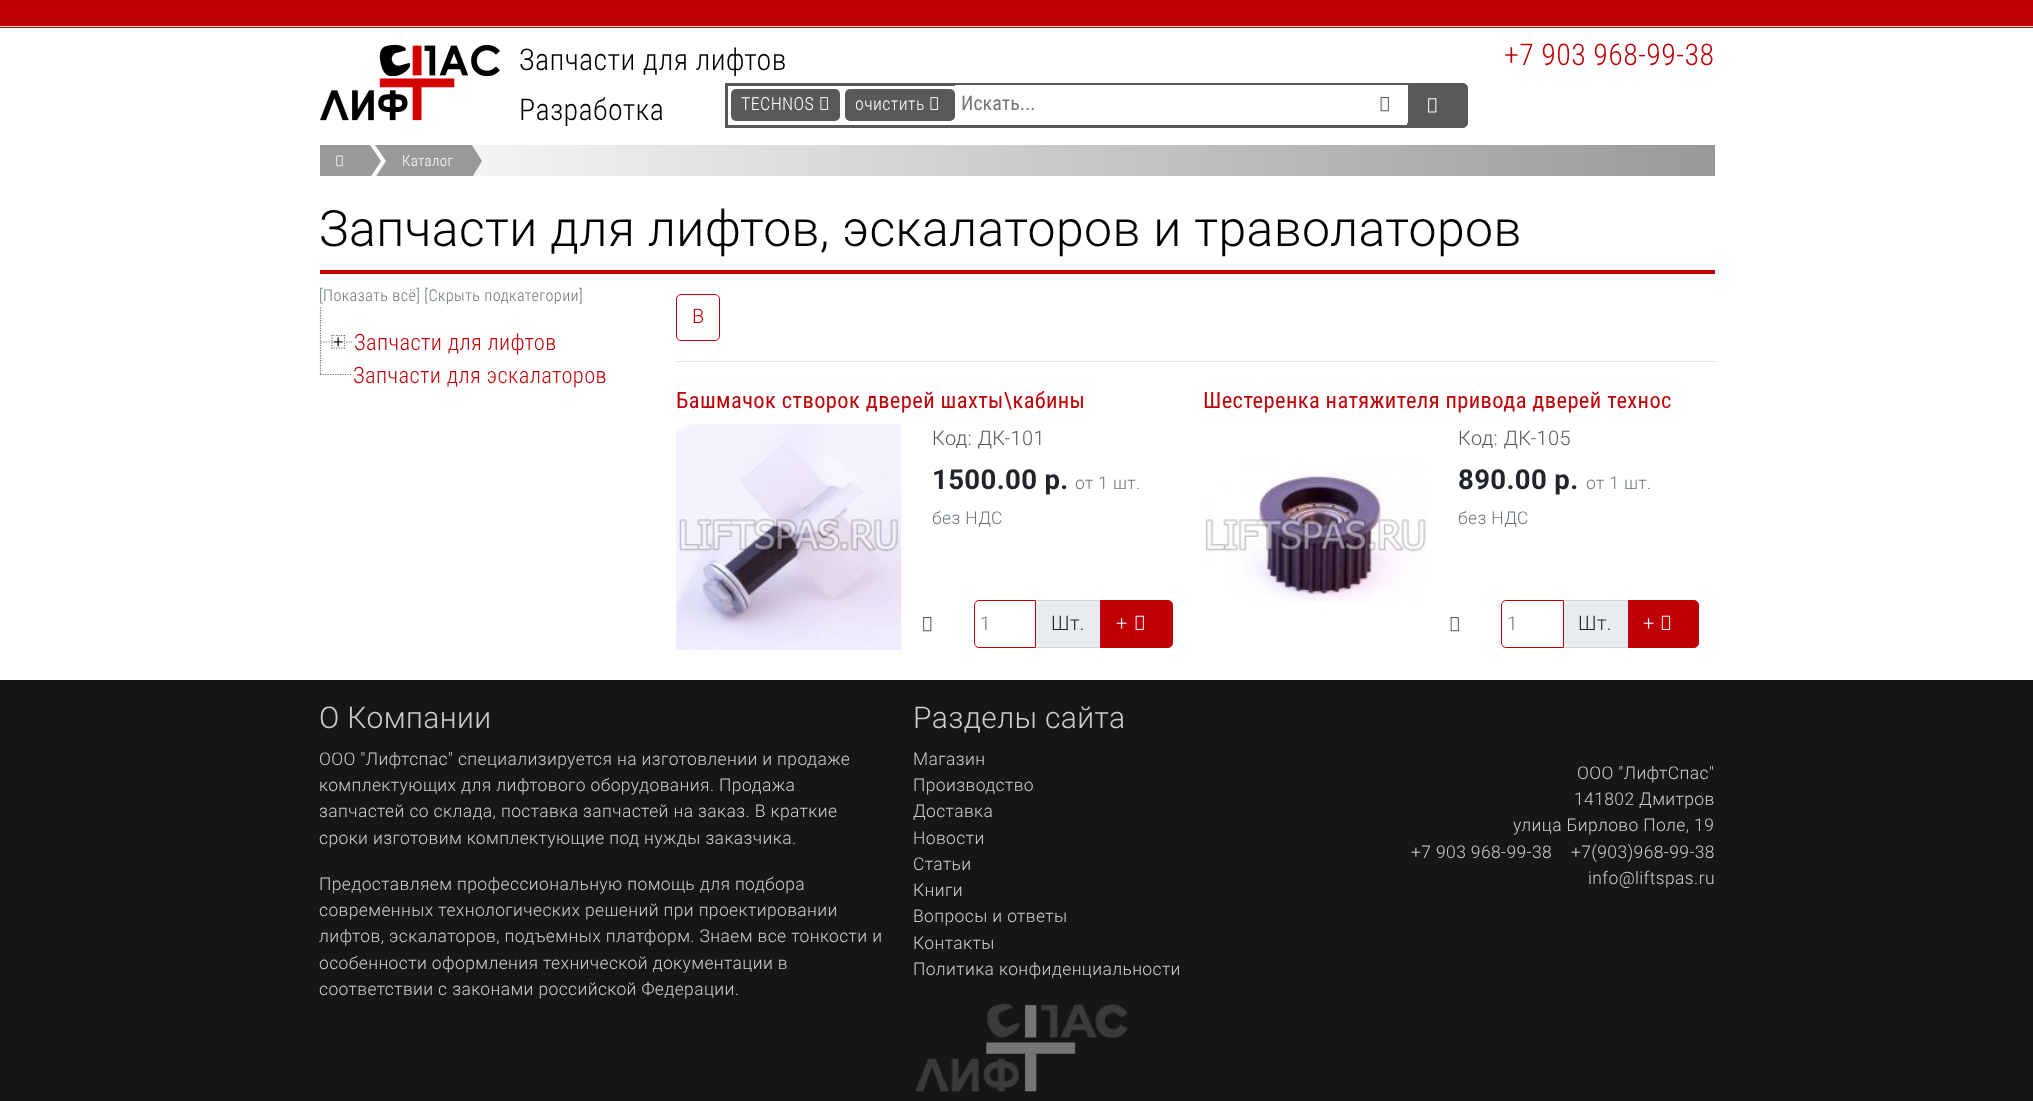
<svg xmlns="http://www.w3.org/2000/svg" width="2033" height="1101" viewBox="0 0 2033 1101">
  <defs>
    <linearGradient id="g1" gradientUnits="userSpaceOnUse" x1="320" y1="161" x2="1715" y2="161"><stop offset="0" stop-color="rgb(255,255,255)"/><stop offset="1" stop-color="rgb(153,153,153)"/></linearGradient>
    <clipPath id="clip1"><rect x="320" y="145" width="1395" height="31"/></clipPath>
  </defs>
  <rect width="100%" height="100%" fill="rgb(255,255,255)"/>
  <rect x="0" y="0" width="2033" height="28" fill="rgb(192,0,6)"/>
  <rect x="0" y="26" width="2033" height="1" fill="rgb(222,226,230)"/>
  <image x="320" y="44" width="180" height="77" href="pic1.png"/>
  <text x="519" y="70" font-family="Roboto Condensed" font-size="30" font-weight="300" letter-spacing="0.38" fill="rgb(0,0,0)">Запчасти для лифтов</text>
  <text x="1504" y="65" font-family="Roboto Condensed" font-size="30" font-weight="300" letter-spacing="0.38" fill="rgb(192,0,6)">+7 903 968-99-38</text>
  <text x="519" y="120" font-family="Roboto Condensed" font-size="30" font-weight="300" letter-spacing="0.38" fill="rgb(0,0,0)">Разработка</text>
  <rect x="726.5" y="84.5" width="682" height="42" fill="none" stroke="rgb(89,89,89)" stroke-width="3"/>
  <rect x="731" y="89" width="109" height="32" rx="5" fill="rgb(89,89,89)"/>
  <text x="741" y="110" font-family="Roboto Condensed" font-size="18" font-weight="300" letter-spacing="0.38" fill="rgb(255,255,255)">TECHNOS</text>
  <image x="820" y="97" width="8" height="13" href="pic2.png"/>
  <rect x="845" y="89" width="110" height="32" rx="5" fill="rgb(89,89,89)"/>
  <text x="855" y="110" font-family="Roboto Condensed" font-size="18" font-weight="300" letter-spacing="0.38" fill="rgb(255,255,255)">очистить</text>
  <image x="930" y="97" width="8" height="13" href="pic2.png"/>
  <rect x="955" y="85" width="453" height="38" fill="rgb(255,255,255)"/>
  <text x="961" y="110" font-family="Roboto Condensed" font-size="20" fill="rgb(117,117,117)">Искать...</text>
  <image x="1380" y="96" width="9" height="16" href="pic3.png"/>
  <path d="M1410.5 83.5H1463C1465.5 83.5 1467.5 85.5 1467.5 88V123C1467.5 125.5 1465.5 127.5 1463 127.5H1410.5Z" fill="rgb(89,89,89)" stroke="rgb(89,89,89)"/>
  <image x="1428" y="98" width="9" height="15" href="pic4.png"/>
  <rect x="370" y="145" width="1345" height="31" fill="url(#g1)"/>
  <rect x="320" y="145" width="46" height="31" fill="rgb(153,153,153)"/>
  <image x="336" y="155" width="7" height="12" href="pic5.png"/>
  <g clip-path="url(#clip1)">
    <path d="M366 184V139L381 161Z" fill="rgb(153,153,153)"/>
  </g>
  <rect x="386" y="145" width="82" height="31" fill="rgb(153,153,153)"/>
  <g clip-path="url(#clip1)">
    <path d="M371 139H386V161ZM386 184H371L386 161Z" fill="rgb(153,153,153)"/>
  </g>
  <text x="402" y="166" font-family="Roboto Condensed" font-size="15" font-weight="300" letter-spacing="0.38" fill="rgb(255,255,255)">Каталог</text>
  <g clip-path="url(#clip1)">
    <path d="M468 184V139L482 161Z" fill="rgb(153,153,153)"/>
  </g>
  <rect x="320" y="270" width="1395" height="4" fill="rgb(192,0,6)"/>
  <text x="319" y="246" font-family="Roboto" font-size="50" font-weight="300" letter-spacing="0.38" fill="rgb(0,0,0)">Запчасти для лифтов, эскалаторов и траволаторов</text>
  <text x="319" y="301" font-family="Roboto Condensed" font-size="16.25" font-weight="300" letter-spacing="0.38" fill="rgb(108,117,125)">[Показать всё] [Скрыть подкатегории]</text>
  <path d="M320.5 307.5V345M321 342H352.5" fill="none" stroke="rgb(108,117,125)" stroke-width="1.2" stroke-dasharray="1.25 1.25"/>
  <path d="M320 374.5H351M320.5 345V375" fill="none" stroke="rgb(108,117,125)" stroke-width="1.2" stroke-dasharray="1.25 1.25"/>
  <image x="332" y="337" width="13" height="10" href="pic6.png"/>
  <path d="M331 335.5H345M344.5 335V349M331 348H345M332 335V349" fill="none" stroke="rgb(108,117,125)" stroke-width="1.2" stroke-dasharray="1.25 1.25"/>
  <g font-family="Roboto Condensed" font-size="22.5" font-weight="300" letter-spacing="0.38" fill="rgb(192,0,6)">
    <text x="354" y="350">Запчасти для лифтов</text>
    <text x="353" y="383">Запчасти для эскалаторов</text>
  </g>
  <rect x="676.5" y="294.5" width="43" height="46" rx="4.5" fill="none" stroke="rgb(192,0,6)"/>
  <text x="692" y="323" font-family="Roboto" font-size="20" font-weight="300" fill="rgb(192,0,6)">В</text>
  <rect x="676" y="361" width="1039" height="1" fill="rgb(222,226,230)"/>
  <text x="676" y="408" font-family="Roboto Condensed" font-size="22.5" letter-spacing="0.38" fill="rgb(192,0,6)">Башмачок створок дверей шахты\кабины</text>
  <image x="676" y="423" width="226" height="227" href="pic7.png"/>
  <text x="932" y="445" font-family="Roboto" font-size="20" font-weight="300" letter-spacing="0.38" fill="rgb(89,89,89)">Код: ДК-101</text>
  <text x="932" y="489" font-family="Roboto" font-size="27.5" font-weight="bold" letter-spacing="0.38" fill="rgb(33,37,41)">1500.00 р.</text>
  <g font-family="Roboto" font-size="17.5" font-weight="300" letter-spacing="0.38" fill="rgb(108,117,125)">
    <text x="1075" y="489">от 1 шт.</text>
    <text x="932" y="524">без НДС</text>
  </g>
  <image x="923" y="616" width="9" height="16" href="pic8.png"/>
  <rect x="1035.5" y="600.5" width="65" height="47" fill="rgb(233,236,239)" stroke="rgb(206,212,218)"/>
  <path d="M979 600.5H1035.5V647.5H979C976.5 647.5 974.5 645.5 974.5 643V605C974.5 602.5 976.5 600.5 979 600.5Z" fill="rgb(255,255,255)" stroke="rgb(192,0,6)"/>
  <text x="980" y="630" font-family="Roboto" font-size="19" font-weight="300" fill="rgb(108,117,125)">1</text>
  <text x="1051" y="630" font-family="Roboto" font-size="20" font-weight="300" letter-spacing="0.38" fill="rgb(33,37,41)">Шт.</text>
  <path d="M1100.5 600.5H1168C1170.5 600.5 1172.5 602.5 1172.5 605V643C1172.5 645.5 1170.5 647.5 1168 647.5H1100.5Z" fill="rgb(192,0,6)" stroke="rgb(192,0,6)"/>
  <text x="1116" y="630" font-family="Roboto" font-size="20" font-weight="300" letter-spacing="0.38" fill="rgb(255,255,255)">+</text>
  <image x="1135" y="615" width="9" height="15" href="pic9.png"/>
  <text x="1203" y="408" font-family="Roboto Condensed" font-size="22.5" letter-spacing="0.38" fill="rgb(192,0,6)">Шестеренка натяжителя привода дверей технос</text>
  <image x="1204" y="462" width="223" height="141" href="pic10.png"/>
  <text x="1458" y="445" font-family="Roboto" font-size="20" font-weight="300" letter-spacing="0.38" fill="rgb(89,89,89)">Код: ДК-105</text>
  <text x="1458" y="489" font-family="Roboto" font-size="27.5" font-weight="bold" letter-spacing="0.38" fill="rgb(33,37,41)">890.00 р.</text>
  <g font-family="Roboto" font-size="17.5" font-weight="300" letter-spacing="0.38" fill="rgb(108,117,125)">
    <text x="1586" y="489">от 1 шт.</text>
    <text x="1458" y="524">без НДС</text>
  </g>
  <image x="1450" y="616" width="9" height="16" href="pic3.png"/>
  <rect x="1563.5" y="600.5" width="65" height="47" fill="rgb(233,236,239)" stroke="rgb(206,212,218)"/>
  <path d="M1506 600.5H1563.5V647.5H1506C1503.5 647.5 1501.5 645.5 1501.5 643V605C1501.5 602.5 1503.5 600.5 1506 600.5Z" fill="rgb(255,255,255)" stroke="rgb(192,0,6)"/>
  <text x="1507" y="630" font-family="Roboto" font-size="19" font-weight="300" fill="rgb(108,117,125)">1</text>
  <text x="1578" y="630" font-family="Roboto" font-size="20" font-weight="300" letter-spacing="0.38" fill="rgb(33,37,41)">Шт.</text>
  <path d="M1628.5 600.5H1694C1696.5 600.5 1698.5 602.5 1698.5 605V643C1698.5 645.5 1696.5 647.5 1694 647.5H1628.5Z" fill="rgb(192,0,6)" stroke="rgb(192,0,6)"/>
  <text x="1643" y="630" font-family="Roboto" font-size="20" font-weight="300" letter-spacing="0.38" fill="rgb(255,255,255)">+</text>
  <image x="1661" y="615" width="10" height="15" href="pic11.png"/>
  <rect x="0" y="680" width="2033" height="421" fill="rgb(22,22,22)"/>
  <text x="319" y="728" font-family="Roboto" font-size="30" font-weight="300" letter-spacing="0.38" fill="rgb(204,204,204)">О Компании</text>
  <g font-family="Roboto" font-size="17.5" font-weight="300" letter-spacing="0.38" fill="rgb(204,204,204)">
    <text>
      <tspan x="319" y="765">ООО "Лифтспас" специализируется на изготовлении и продаже</tspan>
      <tspan x="319" y="791">комплектующих для лифтового оборудования. Продажа</tspan>
      <tspan x="319" y="817">запчастей со склада, поставка запчастей на заказ. В краткие</tspan>
      <tspan x="319" y="844">сроки изготовим комплектующие под нужды заказчика.</tspan>
    </text>
    <text>
      <tspan x="319" y="890">Предоставляем профессиональную помощь для подбора</tspan>
      <tspan x="319" y="916">современных технологических решений при проектировании</tspan>
      <tspan x="319" y="942">лифтов, эскалаторов, подъемных платформ. Знаем все тонкости и</tspan>
      <tspan x="319" y="969">особенности оформления технической документации в</tspan>
      <tspan x="319" y="995">соответствии с законами российской Федерации.</tspan>
    </text>
  </g>
  <text x="913" y="728" font-family="Roboto" font-size="30" font-weight="300" letter-spacing="0.38" fill="rgb(204,204,204)">Разделы сайта</text>
  <g font-family="Roboto" font-size="17.5" font-weight="300" letter-spacing="0.38" fill="rgb(204,204,204)">
    <text>
      <tspan x="913" y="765">Магазин</tspan>
      <tspan x="913" y="791">Производство</tspan>
      <tspan x="913" y="817">Доставка</tspan>
      <tspan x="913" y="844">Новости</tspan>
      <tspan x="913" y="870">Статьи</tspan>
      <tspan x="913" y="896">Книги</tspan>
      <tspan x="913" y="922">Вопросы и ответы</tspan>
      <tspan x="913" y="949">Контакты</tspan>
      <tspan x="913" y="975">Политика конфиденциальности</tspan>
    </text>
  </g>
  <image x="915" y="1003" width="213" height="89" href="pic12.png"/>
  <g font-family="Roboto" font-size="17.5" font-weight="300" letter-spacing="0.38" fill="rgb(204,204,204)">
    <text x="1577" y="779">ООО "ЛифтСпас"</text>
    <text x="1574" y="805">141802 Дмитров</text>
    <text x="1513" y="831">улица Бирлово Поле, 19</text>
    <text x="1411" y="858">+7 903 968-99-38</text>
    <text x="1571" y="858">+7(903)968-99-38</text>
    <text x="1588" y="884">info@liftspas.ru</text>
  </g>
</svg>
